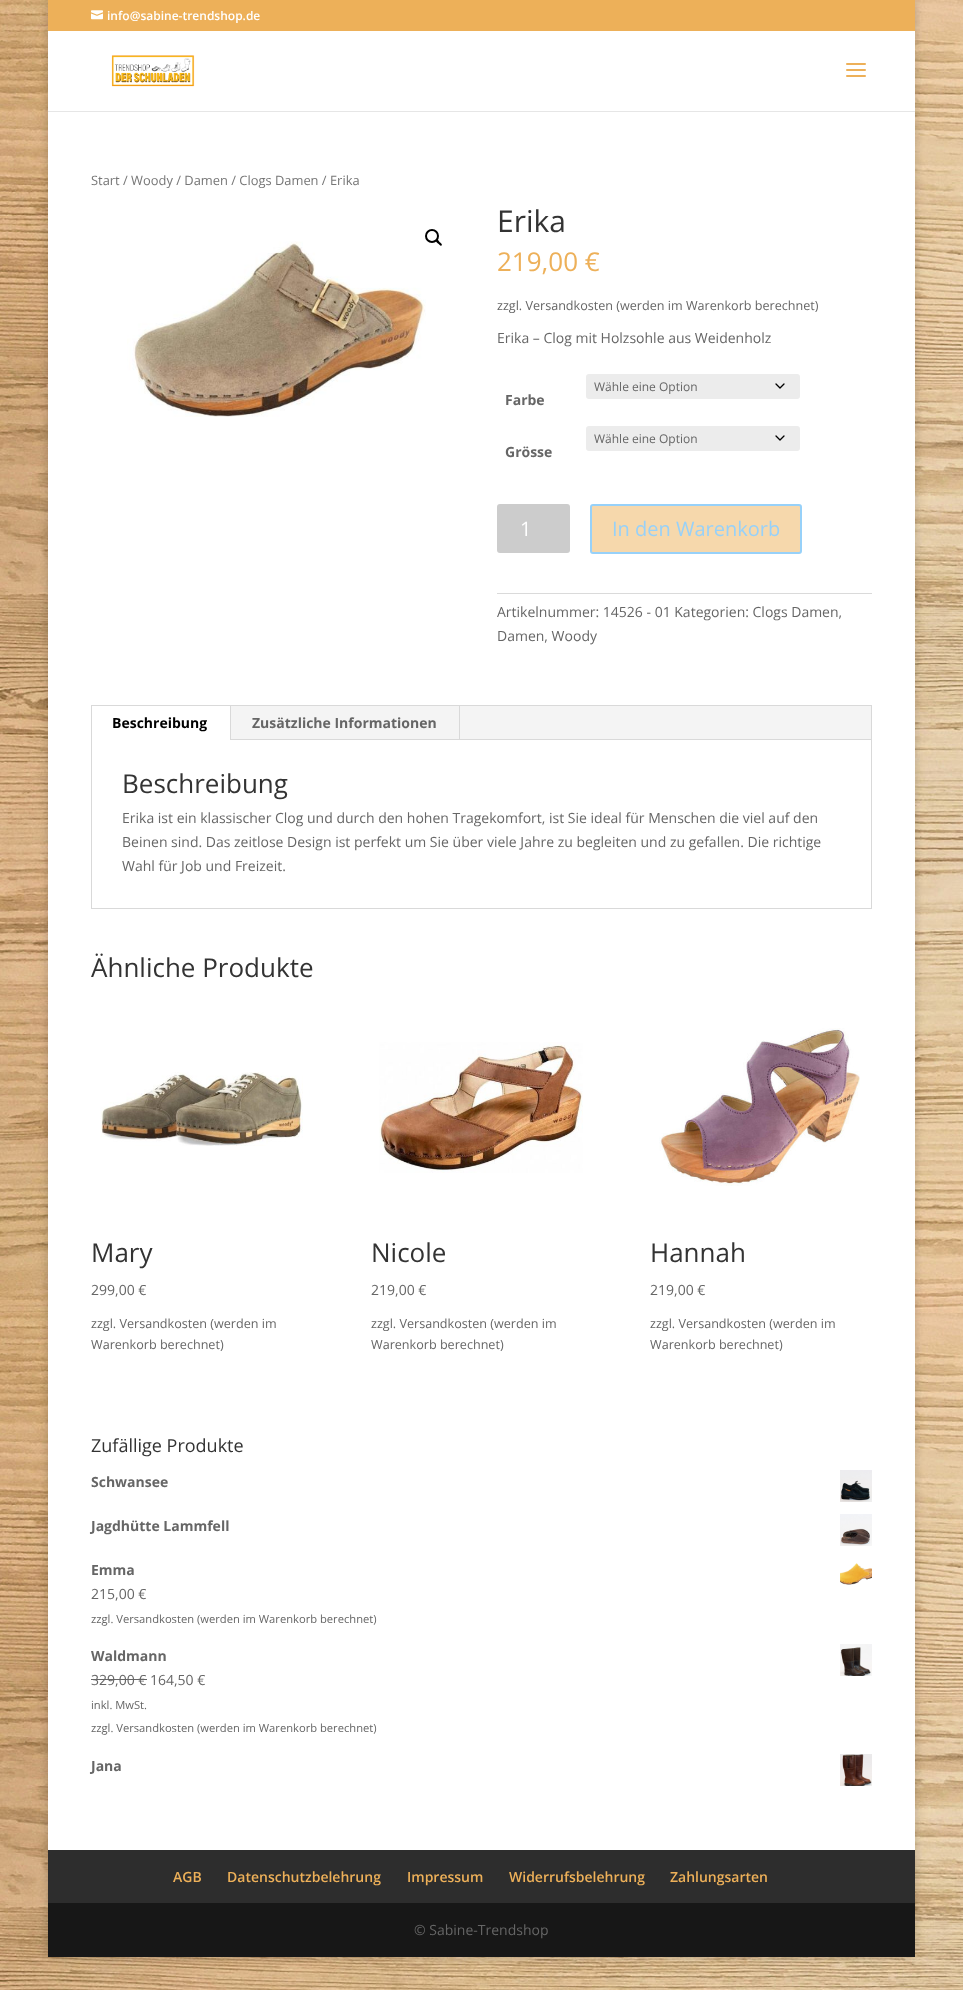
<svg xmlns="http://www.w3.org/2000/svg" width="963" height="1990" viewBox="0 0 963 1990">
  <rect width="100%" height="100%" fill="rgb(255,255,255)"/>
  <image x="0" y="0" width="963" height="1990" href="pic1.png"/>
  <rect x="48" y="0" width="867" height="1957" fill="rgba(0,0,0,0.2)" filter="blur(5px)"/>
  <rect x="48" y="0" width="867" height="31" fill="rgb(237,176,89)"/>
  <image x="91" y="10" width="12" height="10" href="pic2.png"/>
  <text x="107" y="20" font-family="Open Sans" font-size="12" font-weight="600" fill="rgb(255,255,255)">info@sabine-trendshop.de</text>
  <rect x="48" y="111" width="867" height="1" fill="rgb(230,230,230)"/>
  <rect x="48" y="31" width="867" height="80" fill="rgb(255,255,255)"/>
  <image x="111" y="55" width="84" height="32" href="pic3.png"/>
  <image x="846" y="63" width="20" height="14" href="pic4.png"/>
  <rect x="48" y="112" width="867" height="1738" fill="rgb(255,255,255)"/>
  <text x="91" y="185" font-family="Open Sans" font-size="12.9" fill="rgb(118,118,118)">Start / Woody / Damen / Clogs Damen / Erika</text>
  <image x="127" y="241" width="299" height="176" href="pic5.png"/>
  <circle cx="432" cy="236" r="6" fill="none" stroke="rgb(0,0,0)" stroke-width="2"/>
  <path d="M436 240C437.5 238.5 439 241.5 439.5 242C440 242.5 443 244.5 441.5 245.5C440.5 246.5 439 244 438 243.5C437.5 243 435 241 436 240Z" fill="rgb(0,0,0)"/>
  <text x="497" y="232" font-family="Open Sans" font-size="30" fill="rgb(51,51,51)">Erika</text>
  <text x="497" y="271" font-family="Open Sans" font-size="26" fill="rgb(237,176,89)">219,00 €</text>
  <text x="497" y="310" font-family="Open Sans" font-size="12.6" fill="rgb(102,102,102)">zzgl. Versandkosten (werden im Warenkorb berechnet)</text>
  <text x="497" y="343" font-family="Open Sans" font-size="14" fill="rgb(102,102,102)">Erika – Clog mit Holzsohle aus Weidenholz</text>
  <rect x="586" y="374" width="214" height="25" rx="3" fill="rgb(236,236,236)"/>
  <path d="M776 384L780 388L784 384" fill="none" stroke="rgb(0,0,0)" stroke-width="1.3" stroke-linecap="round" stroke-linejoin="round"/>
  <text x="594" y="391" font-family="Open Sans" font-size="12" fill="rgb(102,102,102)">Wähle eine Option</text>
  <text x="505" y="405" font-family="Open Sans" font-size="14" font-weight="bold" fill="rgb(102,102,102)">Farbe</text>
  <rect x="586" y="426" width="214" height="25" rx="3" fill="rgb(236,236,236)"/>
  <path d="M776 436L780 440L784 436" fill="none" stroke="rgb(0,0,0)" stroke-width="1.3" stroke-linecap="round" stroke-linejoin="round"/>
  <text x="594" y="443" font-family="Open Sans" font-size="12" fill="rgb(102,102,102)">Wähle eine Option</text>
  <text x="505" y="457" font-family="Open Sans" font-size="14" font-weight="bold" fill="rgb(102,102,102)">Grösse</text>
  <rect x="497" y="504" width="73" height="49" rx="3" fill="rgb(204,204,204)"/>
  <text x="520" y="536" font-family="Open Sans" font-size="20" fill="rgb(255,255,255)">1</text>
  <rect x="591" y="505" width="210" height="48" rx="2" fill="rgb(246,216,172)" stroke="rgb(151,209,249)" stroke-width="2"/>
  <text x="612" y="536" font-family="Open Sans" font-size="20" fill="rgb(151,209,249)">In den Warenkorb</text>
  <rect x="497" y="593" width="375" height="1" fill="rgb(218,218,218)"/>
  <g font-family="Open Sans" font-size="14" fill="rgb(102,102,102)">
    <text>
      <tspan x="497" y="617">Artikelnummer: 14526 - 01 Kategorien: Clogs Damen,</tspan>
      <tspan x="497" y="641">Damen, Woody</tspan>
    </text>
  </g>
  <rect x="91.5" y="705.5" width="780" height="203" fill="none" stroke="rgb(217,217,217)"/>
  <rect x="231" y="706" width="640" height="33" fill="rgb(244,244,244)"/>
  <rect x="230" y="706" width="1" height="34" fill="rgb(217,217,217)"/>
  <text x="112" y="728" font-family="Open Sans" font-size="14" font-weight="bold" fill="rgb(0,0,0)">Beschreibung</text>
  <rect x="459" y="706" width="1" height="34" fill="rgb(217,217,217)"/>
  <text x="252" y="728" font-family="Open Sans" font-size="14" font-weight="bold" fill="rgb(102,102,102)">Zusätzliche Informationen</text>
  <rect x="231" y="739" width="640" height="1" fill="rgb(217,217,217)"/>
  <text x="122" y="793" font-family="Open Sans" font-size="26" fill="rgb(51,51,51)">Beschreibung</text>
  <g font-family="Open Sans" font-size="14" fill="rgb(102,102,102)">
    <text>
      <tspan x="122" y="823">Erika ist ein klassischer Clog und durch den hohen Tragekomfort, ist Sie ideal für Menschen die viel auf den</tspan>
      <tspan x="122" y="847">Beinen sind. Das zeitlose Design ist perfekt um Sie über viele Jahre zu begleiten und zu gefallen. Die richtige</tspan>
      <tspan x="122" y="871">Wahl für Job und Freizeit.</tspan>
    </text>
  </g>
  <text x="91" y="977" font-family="Open Sans" font-size="26" fill="rgb(51,51,51)">Ähnliche Produkte</text>
  <image x="100" y="1072" width="203" height="74" href="pic6.png"/>
  <text x="91" y="1262" font-family="Open Sans" font-size="26" fill="rgb(51,51,51)">Mary</text>
  <text x="91" y="1295" font-family="Open Sans" font-size="14" fill="rgb(102,102,102)">299,00 €</text>
  <g font-family="Open Sans" font-size="12.6" fill="rgb(102,102,102)">
    <text>
      <tspan x="91" y="1328">zzgl. Versandkosten (werden im</tspan>
      <tspan x="91" y="1349">Warenkorb berechnet)</tspan>
    </text>
  </g>
  <image x="379" y="1042" width="204" height="131" href="pic7.png"/>
  <text x="371" y="1262" font-family="Open Sans" font-size="26" fill="rgb(51,51,51)">Nicole</text>
  <text x="371" y="1295" font-family="Open Sans" font-size="14" fill="rgb(102,102,102)">219,00 €</text>
  <g font-family="Open Sans" font-size="12.6" fill="rgb(102,102,102)">
    <text>
      <tspan x="371" y="1328">zzgl. Versandkosten (werden im</tspan>
      <tspan x="371" y="1349">Warenkorb berechnet)</tspan>
    </text>
  </g>
  <image x="659" y="1028" width="201" height="158" href="pic8.png"/>
  <text x="650" y="1262" font-family="Open Sans" font-size="26" fill="rgb(51,51,51)">Hannah</text>
  <text x="650" y="1295" font-family="Open Sans" font-size="14" fill="rgb(102,102,102)">219,00 €</text>
  <g font-family="Open Sans" font-size="12.6" fill="rgb(102,102,102)">
    <text>
      <tspan x="650" y="1328">zzgl. Versandkosten (werden im</tspan>
      <tspan x="650" y="1349">Warenkorb berechnet)</tspan>
    </text>
  </g>
  <text x="91" y="1452" font-family="Open Sans" font-size="18" fill="rgb(51,51,51)">Zufällige Produkte</text>
  <text x="91" y="1487" font-family="Open Sans" font-size="14" font-weight="bold" fill="rgb(102,102,102)">Schwansee</text>
  <image x="840" y="1470" width="32" height="32" href="pic9.png"/>
  <text x="91" y="1531" font-family="Open Sans" font-size="14" font-weight="bold" fill="rgb(102,102,102)">Jagdhütte Lammfell</text>
  <image x="840" y="1514" width="32" height="32" href="pic10.png"/>
  <text x="91" y="1575" font-family="Open Sans" font-size="14" font-weight="bold" fill="rgb(102,102,102)">Emma</text>
  <image x="840" y="1563" width="32" height="22" href="pic11.png"/>
  <text x="91" y="1599" font-family="Open Sans" font-size="14" fill="rgb(102,102,102)">215,00 €</text>
  <text x="91" y="1623" font-family="Open Sans" font-size="11.2" fill="rgb(102,102,102)">zzgl. Versandkosten (werden im Warenkorb berechnet)</text>
  <text x="91" y="1661" font-family="Open Sans" font-size="14" font-weight="bold" fill="rgb(102,102,102)">Waldmann</text>
  <image x="840" y="1644" width="32" height="32" href="pic12.png"/>
  <text x="91" y="1685" font-family="Open Sans" font-size="14" fill="rgb(102,102,102)">329,00 € 164,50 €</text>
  <rect x="91" y="1679" width="56" height="1" fill="rgb(102,102,102)"/>
  <g font-family="Open Sans" font-size="11.2" fill="rgb(102,102,102)">
    <text x="91" y="1709">inkl. MwSt.</text>
    <text x="91" y="1732">zzgl. Versandkosten (werden im Warenkorb berechnet)</text>
  </g>
  <text x="91" y="1771" font-family="Open Sans" font-size="14" font-weight="bold" fill="rgb(102,102,102)">Jana</text>
  <image x="840" y="1754" width="32" height="32" href="pic13.png"/>
  <rect x="48" y="1850" width="867" height="53" fill="rgb(45,45,45)"/>
  <g font-family="Open Sans" font-size="14" font-weight="600" fill="rgb(237,176,89)">
    <text x="173" y="1882">AGB</text>
    <text x="227" y="1882">Datenschutzbelehrung</text>
    <text x="407" y="1882">Impressum</text>
    <text x="509" y="1882">Widerrufsbelehrung</text>
    <text x="670" y="1882">Zahlungsarten</text>
  </g>
  <rect x="48" y="1903" width="867" height="54" fill="rgb(23,23,23)"/>
  <text x="414" y="1935" font-family="Open Sans" font-size="14" fill="rgb(102,102,102)">© Sabine-Trendshop</text>
</svg>
